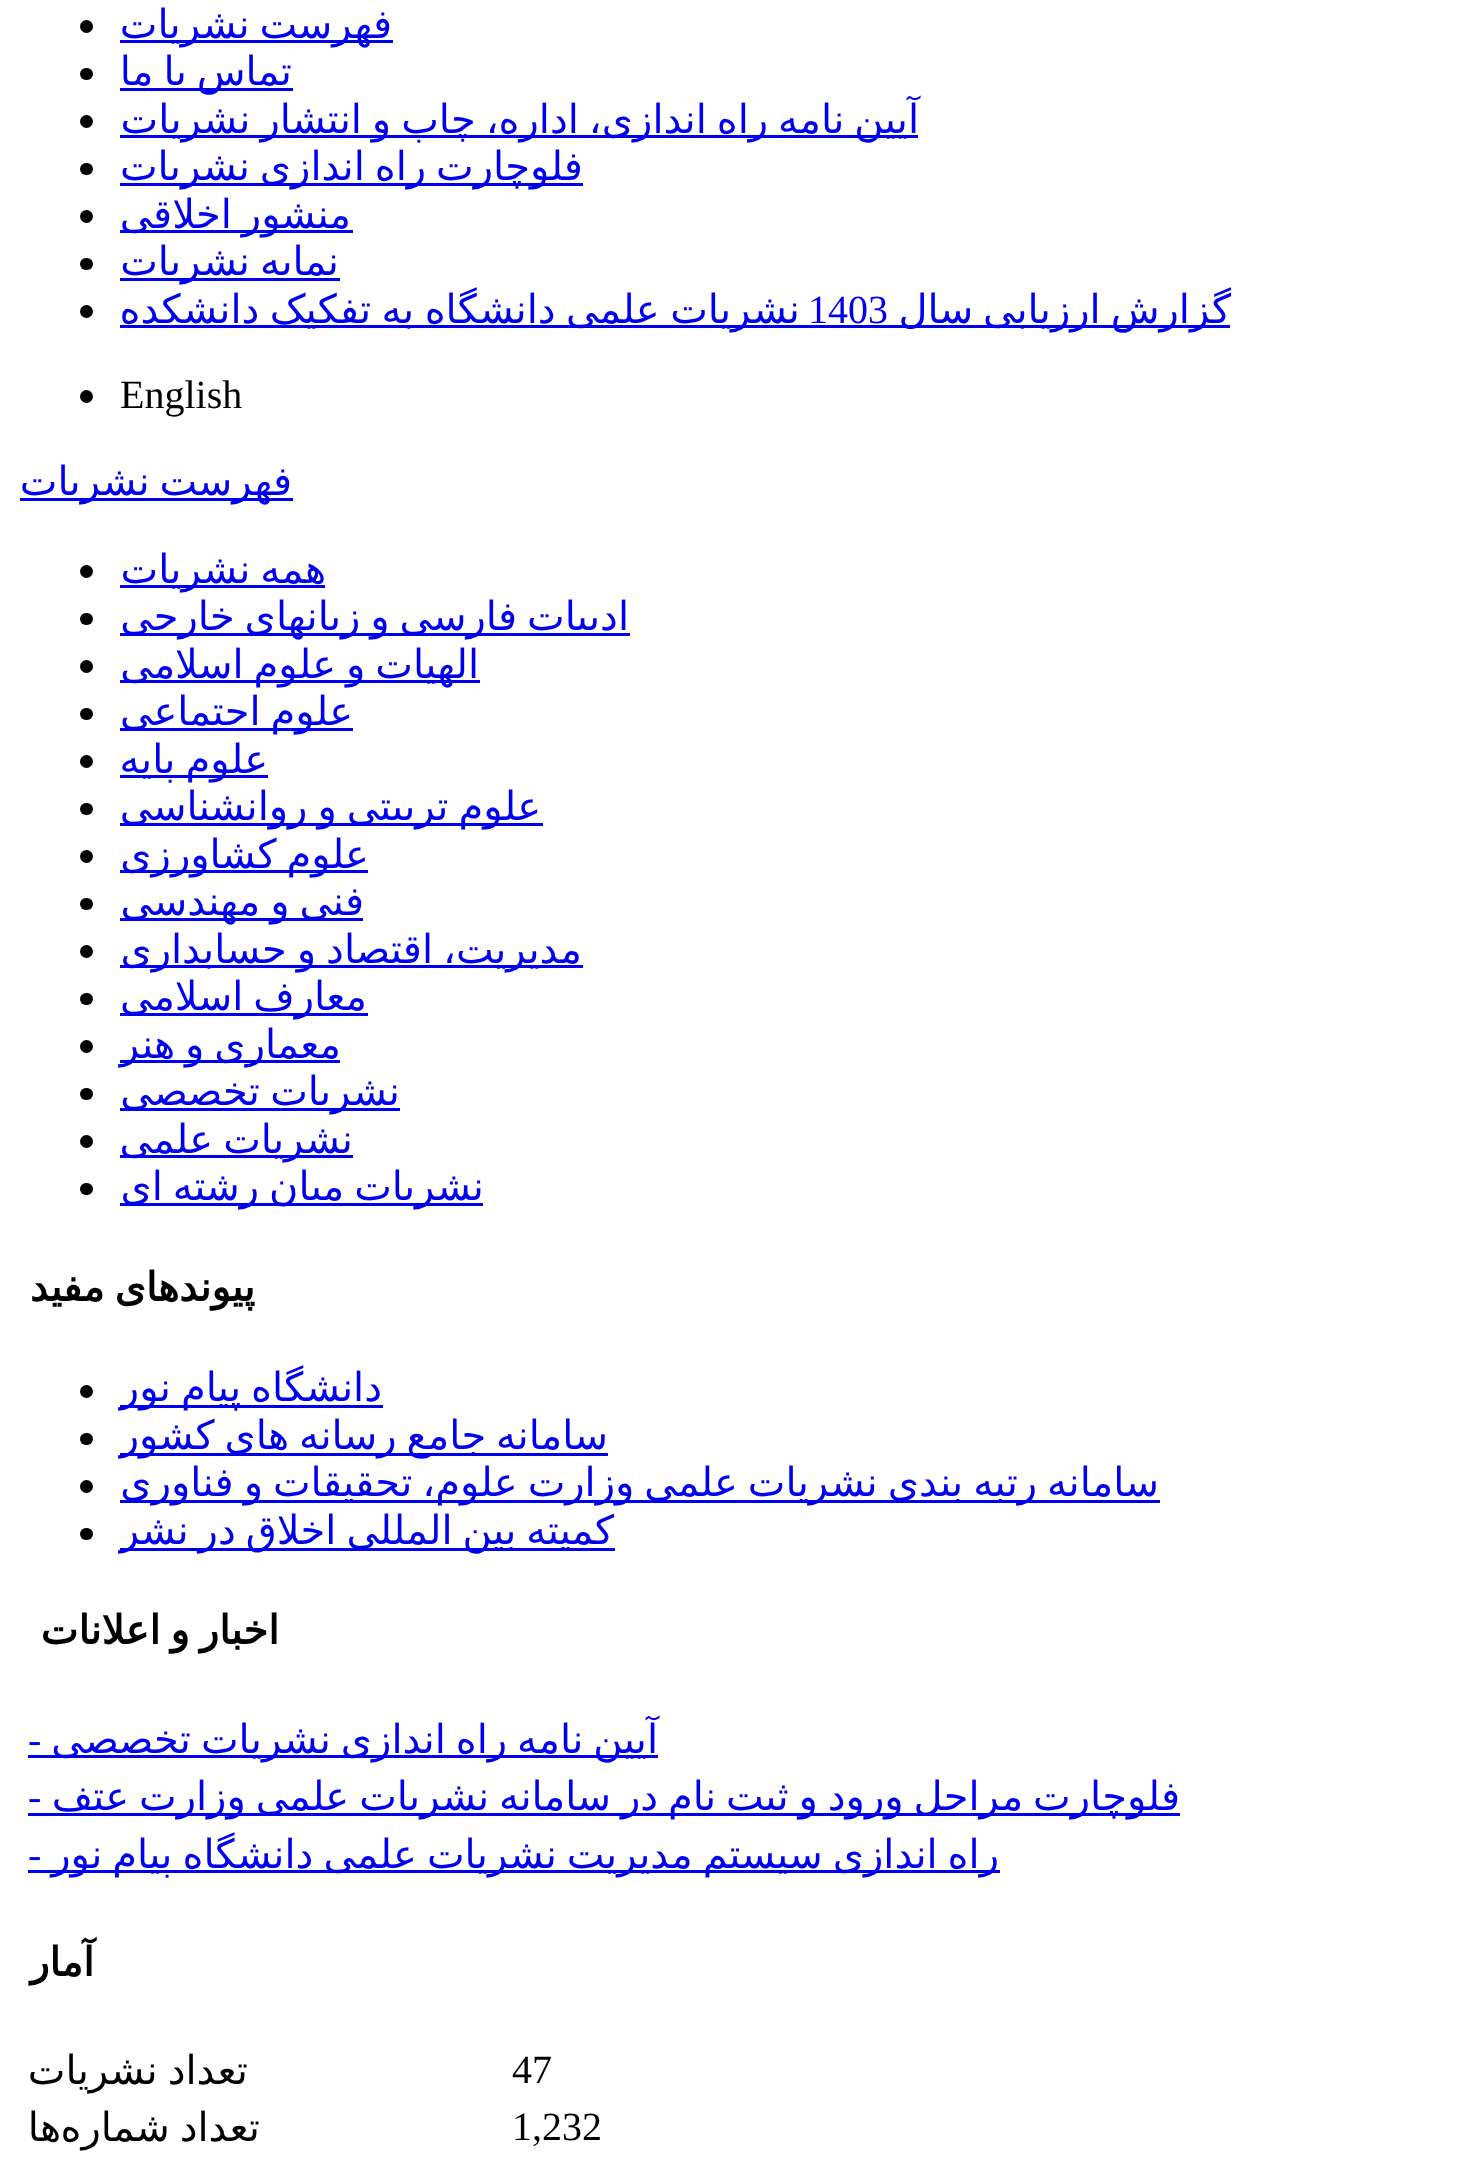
<svg xmlns="http://www.w3.org/2000/svg" width="1468" height="2169" viewBox="0 0 1468 2169">
  <rect width="100%" height="100%" fill="rgb(255,255,255)"/>
  <rect x="120" y="40" width="273" height="3" fill="rgb(0,0,238)"/>
  <text x="392" y="38" word-spacing="-2.75" font-family="DejaVu Sans" font-size="40" direction="rtl" fill="rgb(0,0,238)">فهرست نشریات</text>
  <circle cx="86.5" cy="26.5" r="6.5" fill="rgb(0,0,0)"/>
  <rect x="120" y="88" width="173" height="3" fill="rgb(0,0,238)"/>
  <text x="292" y="85" word-spacing="-2.75" font-family="DejaVu Sans" font-size="40" direction="rtl" fill="rgb(0,0,238)">تماس با ما</text>
  <rect x="80" y="68" width="13" height="12" rx="6" fill="rgb(0,0,0)"/>
  <rect x="120" y="135" width="798" height="3" fill="rgb(0,0,238)"/>
  <text x="919" y="133" word-spacing="-2.75" font-family="DejaVu Sans" font-size="40" direction="rtl" fill="rgb(0,0,238)">آیین نامه راه اندازی، اداره، چاپ و انتشار نشریات</text>
  <circle cx="86.5" cy="121.5" r="6.5" fill="rgb(0,0,0)"/>
  <rect x="120" y="183" width="463" height="3" fill="rgb(0,0,238)"/>
  <text x="583" y="180" word-spacing="-2.75" font-family="DejaVu Sans" font-size="40" direction="rtl" fill="rgb(0,0,238)">فلوچارت راه اندازی نشریات</text>
  <rect x="80" y="163" width="13" height="12" rx="6" fill="rgb(0,0,0)"/>
  <rect x="120" y="230" width="233" height="3" fill="rgb(0,0,238)"/>
  <text x="351" y="228" word-spacing="-2.75" font-family="DejaVu Sans" font-size="40" direction="rtl" fill="rgb(0,0,238)">منشور اخلاقی</text>
  <circle cx="86.5" cy="216.5" r="6.5" fill="rgb(0,0,0)"/>
  <rect x="120" y="278" width="220" height="3" fill="rgb(0,0,238)"/>
  <text x="339" y="275" word-spacing="-2.75" font-family="DejaVu Sans" font-size="40" direction="rtl" fill="rgb(0,0,238)">نمایه نشریات</text>
  <rect x="80" y="258" width="13" height="12" rx="6" fill="rgb(0,0,0)"/>
  <rect x="808" y="325" width="422" height="3" fill="rgb(0,0,238)"/>
  <text x="1231" y="323" word-spacing="-2.75" font-family="DejaVu Sans" font-size="40" direction="rtl" fill="rgb(0,0,238)">گزارش ارزیابی سال</text>
  <text x="808" y="323" font-family="Liberation Serif" font-size="40" fill="rgb(0,0,238)">1403</text>
  <rect x="120" y="325" width="688" height="3" fill="rgb(0,0,238)"/>
  <text x="800" y="323" word-spacing="-2.25" font-family="DejaVu Sans" font-size="40" direction="rtl" fill="rgb(0,0,238)">نشریات علمی دانشگاه به تفکیک دانشکده</text>
  <circle cx="86.5" cy="311.5" r="6.5" fill="rgb(0,0,0)"/>
  <text x="120" y="408" font-family="Liberation Serif" font-size="40" fill="rgb(0,0,0)">English</text>
  <circle cx="86.5" cy="396.5" r="6.5" fill="rgb(0,0,0)"/>
  <rect x="20" y="498" width="273" height="3" fill="rgb(0,0,238)"/>
  <text x="292" y="495" word-spacing="-2.75" font-family="DejaVu Sans" font-size="40" direction="rtl" fill="rgb(0,0,238)">فهرست نشریات</text>
  <rect x="120" y="585" width="205" height="3" fill="rgb(0,0,238)"/>
  <text x="326" y="583" word-spacing="-2.75" font-family="DejaVu Sans" font-size="40" direction="rtl" fill="rgb(0,0,238)">همه نشریات</text>
  <circle cx="86.5" cy="571.5" r="6.5" fill="rgb(0,0,0)"/>
  <rect x="120" y="633" width="510" height="3" fill="rgb(0,0,238)"/>
  <text x="629" y="630" word-spacing="-2.75" font-family="DejaVu Sans" font-size="40" direction="rtl" fill="rgb(0,0,238)">ادبیات فارسی و زبانهای خارجی</text>
  <rect x="80" y="613" width="13" height="12" rx="6" fill="rgb(0,0,0)"/>
  <rect x="120" y="680" width="360" height="3" fill="rgb(0,0,238)"/>
  <text x="479" y="678" word-spacing="-2.75" font-family="DejaVu Sans" font-size="40" direction="rtl" fill="rgb(0,0,238)">الهیات و علوم اسلامی</text>
  <circle cx="86.5" cy="666.5" r="6.5" fill="rgb(0,0,0)"/>
  <rect x="120" y="728" width="233" height="3" fill="rgb(0,0,238)"/>
  <text x="353" y="725" word-spacing="-2.75" font-family="DejaVu Sans" font-size="40" direction="rtl" fill="rgb(0,0,238)">علوم اجتماعی</text>
  <rect x="80" y="708" width="13" height="12" rx="6" fill="rgb(0,0,0)"/>
  <rect x="120" y="775" width="148" height="3" fill="rgb(0,0,238)"/>
  <text x="268" y="773" word-spacing="-2.75" font-family="DejaVu Sans" font-size="40" direction="rtl" fill="rgb(0,0,238)">علوم پایه</text>
  <circle cx="86.5" cy="761.5" r="6.5" fill="rgb(0,0,0)"/>
  <rect x="120" y="823" width="423" height="3" fill="rgb(0,0,238)"/>
  <text x="541" y="820" word-spacing="-2.75" font-family="DejaVu Sans" font-size="40" direction="rtl" fill="rgb(0,0,238)">علوم تربیتی و روانشناسی</text>
  <rect x="80" y="803" width="13" height="12" rx="6" fill="rgb(0,0,0)"/>
  <rect x="120" y="870" width="248" height="3" fill="rgb(0,0,238)"/>
  <text x="369" y="868" word-spacing="-2.75" font-family="DejaVu Sans" font-size="40" direction="rtl" fill="rgb(0,0,238)">علوم کشاورزی</text>
  <circle cx="86.5" cy="856.5" r="6.5" fill="rgb(0,0,0)"/>
  <rect x="120" y="918" width="243" height="3" fill="rgb(0,0,238)"/>
  <text x="364" y="915" word-spacing="-2.75" font-family="DejaVu Sans" font-size="40" direction="rtl" fill="rgb(0,0,238)">فنی و مهندسی</text>
  <rect x="80" y="898" width="13" height="12" rx="6" fill="rgb(0,0,0)"/>
  <rect x="120" y="965" width="463" height="3" fill="rgb(0,0,238)"/>
  <text x="582" y="963" word-spacing="-2.75" font-family="DejaVu Sans" font-size="40" direction="rtl" fill="rgb(0,0,238)">مدیریت، اقتصاد و حسابداری</text>
  <circle cx="86.5" cy="951.5" r="6.5" fill="rgb(0,0,0)"/>
  <rect x="120" y="1013" width="248" height="3" fill="rgb(0,0,238)"/>
  <text x="367" y="1010" word-spacing="-2.75" font-family="DejaVu Sans" font-size="40" direction="rtl" fill="rgb(0,0,238)">معارف اسلامی</text>
  <rect x="80" y="993" width="13" height="12" rx="6" fill="rgb(0,0,0)"/>
  <rect x="120" y="1060" width="220" height="3" fill="rgb(0,0,238)"/>
  <text x="341" y="1058" word-spacing="-2.75" font-family="DejaVu Sans" font-size="40" direction="rtl" fill="rgb(0,0,238)">معماری و هنر</text>
  <circle cx="86.5" cy="1046.5" r="6.5" fill="rgb(0,0,0)"/>
  <rect x="120" y="1108" width="280" height="3" fill="rgb(0,0,238)"/>
  <g font-family="DejaVu Sans" font-size="40" direction="rtl" fill="rgb(0,0,238)">
    <text x="400" y="1105">نشریات</text>
    <text x="260" y="1105">تخصصی</text>
  </g>
  <rect x="80" y="1088" width="13" height="12" rx="6" fill="rgb(0,0,0)"/>
  <rect x="120" y="1155" width="233" height="3" fill="rgb(0,0,238)"/>
  <text x="353" y="1153" word-spacing="-2.75" font-family="DejaVu Sans" font-size="40" direction="rtl" fill="rgb(0,0,238)">نشریات علمی</text>
  <circle cx="86.5" cy="1141.5" r="6.5" fill="rgb(0,0,0)"/>
  <rect x="120" y="1203" width="363" height="3" fill="rgb(0,0,238)"/>
  <text x="484" y="1200" word-spacing="-2.75" font-family="DejaVu Sans" font-size="40" direction="rtl" fill="rgb(0,0,238)">نشریات میان رشته ای</text>
  <rect x="80" y="1183" width="13" height="12" rx="6" fill="rgb(0,0,0)"/>
  <text x="255" y="1301" word-spacing="-2.75" font-family="DejaVu Sans" font-size="40" font-weight="bold" direction="rtl" fill="rgb(0,0,0)">پیوندهای مفید</text>
  <rect x="120" y="1405" width="263" height="3" fill="rgb(0,0,238)"/>
  <text x="382" y="1401" word-spacing="-2.75" font-family="DejaVu Sans" font-size="40" direction="rtl" fill="rgb(0,0,238)">دانشگاه پیام نور</text>
  <circle cx="86.5" cy="1391.5" r="6.5" fill="rgb(0,0,0)"/>
  <rect x="120" y="1453" width="488" height="3" fill="rgb(0,0,238)"/>
  <text x="608" y="1449" word-spacing="-2.75" font-family="DejaVu Sans" font-size="40" direction="rtl" fill="rgb(0,0,238)">سامانه جامع رسانه های کشور</text>
  <rect x="80" y="1433" width="13" height="12" rx="6" fill="rgb(0,0,0)"/>
  <rect x="120" y="1500" width="1040" height="3" fill="rgb(0,0,238)"/>
  <text x="1159" y="1496" word-spacing="-2.75" font-family="DejaVu Sans" font-size="40" direction="rtl" fill="rgb(0,0,238)">سامانه رتبه بندی نشریات علمی وزارت علوم، تحقیقات و فناوری</text>
  <circle cx="86.5" cy="1486.5" r="6.5" fill="rgb(0,0,0)"/>
  <rect x="120" y="1548" width="495" height="3" fill="rgb(0,0,238)"/>
  <text x="614" y="1544" word-spacing="-2.75" font-family="DejaVu Sans" font-size="40" direction="rtl" fill="rgb(0,0,238)">کمیته بین المللی اخلاق در نشر</text>
  <rect x="80" y="1528" width="13" height="12" rx="6" fill="rgb(0,0,0)"/>
  <text x="279" y="1644" word-spacing="-2.75" font-family="DejaVu Sans" font-size="40" font-weight="bold" direction="rtl" fill="rgb(0,0,0)">اخبار و اعلانات</text>
  <rect x="28" y="1755" width="630" height="3" fill="rgb(0,0,238)"/>
  <text x="658" y="1753" word-spacing="-2.75" font-family="DejaVu Sans" font-size="40" direction="rtl" fill="rgb(0,0,238)">آیین نامه راه اندازی نشریات تخصصی</text>
  <text x="28" y="1753" font-family="Liberation Serif" font-size="40" fill="rgb(0,0,238)">-</text>
  <rect x="28" y="1813" width="1152" height="3" fill="rgb(0,0,238)"/>
  <text x="1180" y="1810" word-spacing="-2.75" font-family="DejaVu Sans" font-size="40" direction="rtl" fill="rgb(0,0,238)">فلوچارت مراحل ورود و ثبت نام در سامانه نشریات علمی وزارت عتف</text>
  <text x="28" y="1810" font-family="Liberation Serif" font-size="40" fill="rgb(0,0,238)">-</text>
  <rect x="28" y="1870" width="972" height="3" fill="rgb(0,0,238)"/>
  <text x="999" y="1868" word-spacing="-2.75" font-family="DejaVu Sans" font-size="40" direction="rtl" fill="rgb(0,0,238)">راه اندازی سیستم مدیریت نشریات علمی دانشگاه پیام نور</text>
  <text x="28" y="1868" font-family="Liberation Serif" font-size="40" fill="rgb(0,0,238)">-</text>
  <text x="94" y="1976" font-family="DejaVu Sans" font-size="40" font-weight="bold" direction="rtl" fill="rgb(0,0,0)">آمار</text>
  <text x="512" y="2083" font-family="Liberation Serif" font-size="40" fill="rgb(0,0,0)">47</text>
  <text x="248" y="2084" word-spacing="-2.75" font-family="DejaVu Sans" font-size="40" direction="rtl" fill="rgb(0,0,0)">تعداد نشریات</text>
  <text x="512" y="2140" font-family="Liberation Serif" font-size="40" fill="rgb(0,0,0)">1,232</text>
  <g font-family="DejaVu Sans" font-size="40" direction="rtl" fill="rgb(0,0,0)">
    <text x="260" y="2141" word-spacing="-2.75">تعداد شماره</text>
    <text x="61" y="2141">ها</text>
  </g>
</svg>
